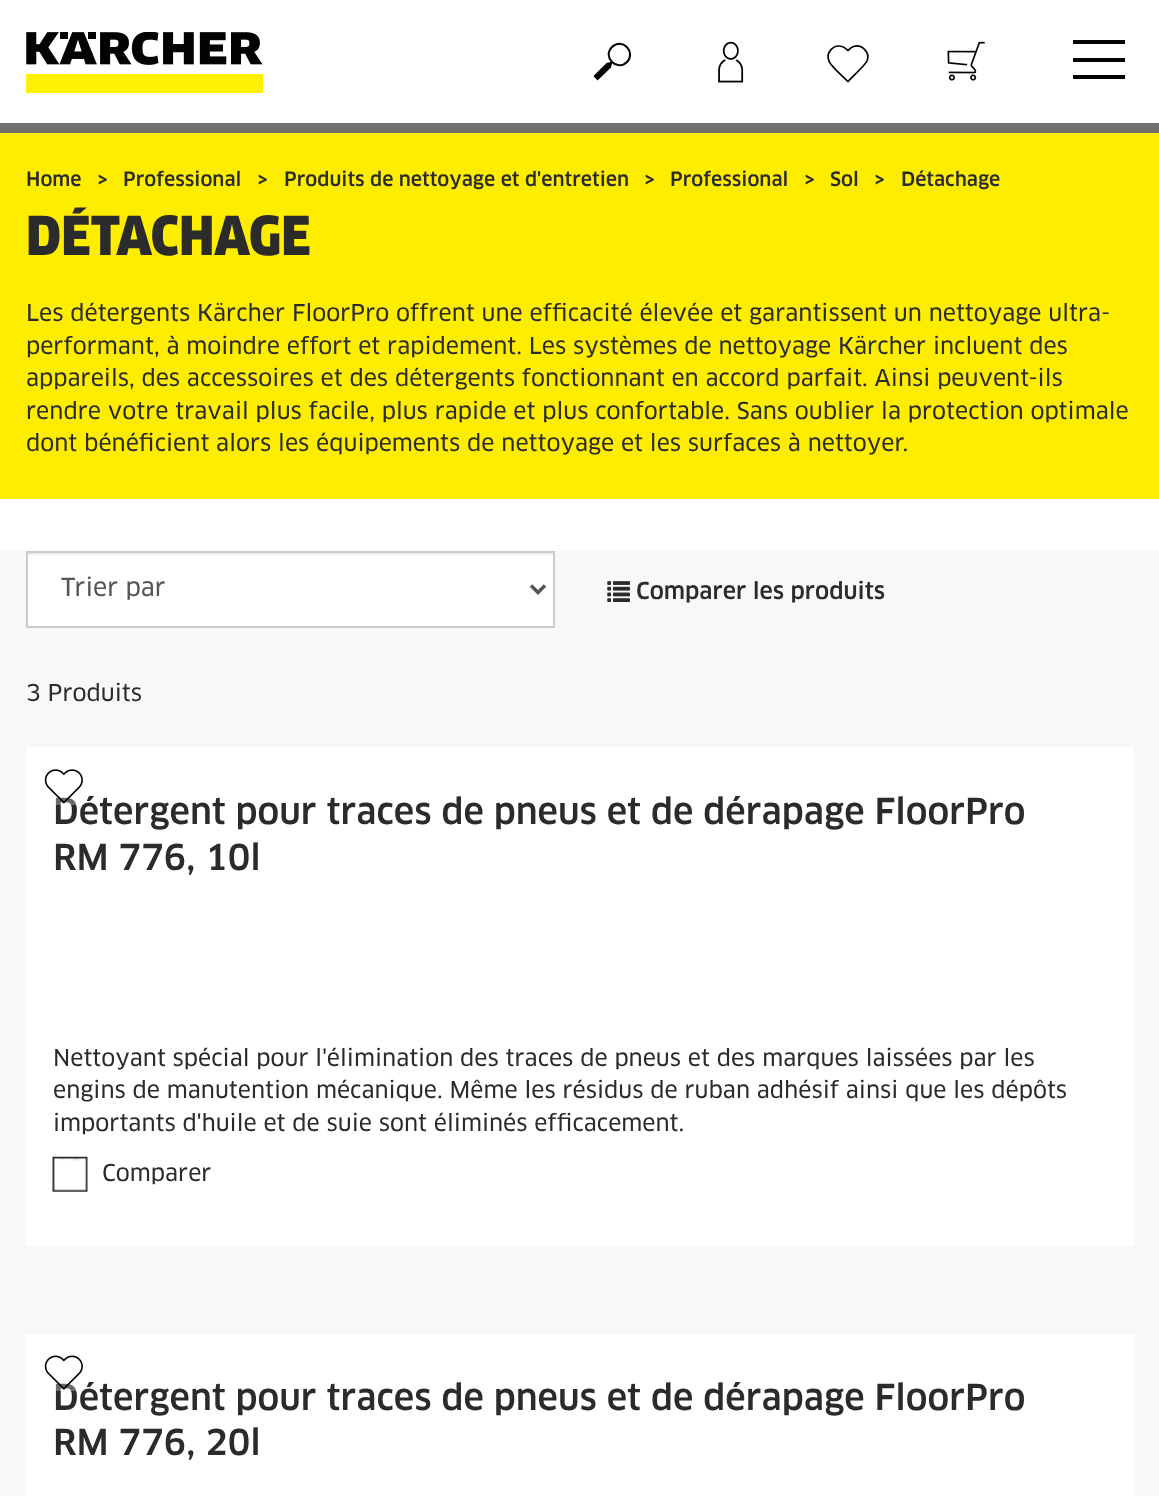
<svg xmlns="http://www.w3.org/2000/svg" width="1159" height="1496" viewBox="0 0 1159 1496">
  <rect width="100%" height="100%" fill="rgb(255,255,255)"/>
  <rect x="0" y="123" width="1159" height="10" fill="rgb(111,111,109)"/>
  <image x="26" y="32" width="237" height="61" href="pic1.png"/>
  <path d="M612 47C602 57 617 72 627 62C636.5 52 622 37 612 47Z" fill="none" stroke="rgb(3,3,3)" stroke-width="2"/>
  <path d="M593.5 76L606.5 63L612.5 61.5L611 67.5L597.5 80.5" fill="rgb(3,3,3)"/>
  <image x="718" y="41" width="26" height="42" href="pic2.png"/>
  <path d="M848 81.5C843.5 77 830.5 66 829 61C825.5 52.5 833.5 44 842 46.5C844.5 47 846 49 848 50.5C849.5 49 851.5 47 853.5 46.5C862 44 870.5 52.5 867 61C865 65.5 851.5 77.5 848 81.5Z" fill="none" stroke="rgb(3,3,3)" stroke-width="1.7"/>
  <image x="947" y="41" width="38" height="40" href="pic3.png"/>
  <rect x="1073" y="40" width="52" height="4" fill="rgb(3,3,3)"/>
  <rect x="1073" y="58" width="52" height="4" fill="rgb(3,3,3)"/>
  <rect x="1073" y="75" width="52" height="4" fill="rgb(3,3,3)"/>
  <rect x="0" y="133" width="1159" height="366" fill="rgb(255,237,0)"/>
  <g font-family="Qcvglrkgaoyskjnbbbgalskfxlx" font-size="19.25" font-weight="500" fill="rgb(43,43,43)">
    <text x="26" y="186">Home</text>
    <text x="97" y="186">&gt;</text>
    <text x="123" y="186">Professional</text>
    <text x="257" y="186">&gt;</text>
    <text x="284" y="186">Produits de nettoyage et d'entretien</text>
    <text x="644" y="186">&gt;</text>
    <text x="670" y="186">Professional</text>
    <text x="804" y="186">&gt;</text>
    <text x="830" y="186">Sol</text>
    <text x="874" y="186">&gt;</text>
    <text x="901" y="186">Détachage</text>
  </g>
  <text x="26" y="255" font-family="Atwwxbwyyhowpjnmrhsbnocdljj" font-size="52.5" font-weight="900" fill="rgb(43,43,43)">DÉTACHAGE</text>
  <g font-family="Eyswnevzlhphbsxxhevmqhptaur" font-size="22.75" fill="rgb(43,43,43)">
    <text>
      <tspan x="26" y="321">Les détergents Kärcher FloorPro offrent une efficacité élevée et garantissent un nettoyage ultra-</tspan>
      <tspan x="26" y="354">performant, à moindre effort et rapidement. Les systèmes de nettoyage Kärcher incluent des</tspan>
      <tspan x="26" y="386">appareils, des accessoires et des détergents fonctionnant en accord parfait. Ainsi peuvent-ils</tspan>
      <tspan x="26" y="419">rendre votre travail plus facile, plus rapide et plus confortable. Sans oublier la protection optimale</tspan>
      <tspan x="26" y="451">dont bénéficient alors les équipements de nettoyage et les surfaces à nettoyer.</tspan>
    </text>
  </g>
  <rect x="0" y="551" width="1159" height="945" fill="rgb(248,248,248)"/>
  <rect x="28" y="555" width="525" height="71" fill="rgb(255,255,255)"/>
  <rect x="28" y="553" width="525" height="2" fill="rgb(236,236,236)"/>
  <rect x="27" y="552" width="527" height="75" fill="none" stroke="rgb(204,204,204)" stroke-width="2"/>
  <path d="M531 585.5L538 592.5L545 585.5" fill="none" stroke="rgb(85,85,85)" stroke-width="3.5"/>
  <text x="61" y="596" font-family="Eyswnevzlhphbsxxhevmqhptaur" font-size="24.5" fill="rgb(85,85,85)">Trier par</text>
  <image x="607" y="581" width="23" height="21" href="pic4.png"/>
  <text x="636" y="599" font-family="Qcvglrkgaoyskjnbbbgalskfxlx" font-size="22.75" font-weight="500" fill="rgb(43,43,43)">Comparer les produits</text>
  <text x="26" y="701" font-family="Eyswnevzlhphbsxxhevmqhptaur" font-size="22.75" fill="rgb(43,43,43)">3 Produits</text>
  <rect x="26" y="747" width="1108" height="499" fill="rgb(255,255,255)"/>
  <text x="53" y="824" font-family="Qcvglrkgaoyskjnbbbgalskfxlx" font-size="35" font-weight="500" fill="rgb(43,43,43)">Détergent pour traces de pneus et de dérapage FloorPro</text>
  <rect x="55" y="797" width="29" height="8" fill="rgba(255,255,255,0.3)"/>
  <image x="44" y="769" width="39" height="35" href="pic5.png"/>
  <text x="53" y="870" font-family="Qcvglrkgaoyskjnbbbgalskfxlx" font-size="35" font-weight="500" fill="rgb(43,43,43)">RM 776, 10l</text>
  <g font-family="Eyswnevzlhphbsxxhevmqhptaur" font-size="22.75" fill="rgb(43,43,43)">
    <text>
      <tspan x="53" y="1066">Nettoyant spécial pour l'élimination des traces de pneus et des marques laissées par les</tspan>
      <tspan x="53" y="1098">engins de manutention mécanique. Même les résidus de ruban adhésif ainsi que les dépôts</tspan>
      <tspan x="53" y="1131">importants d'huile et de suie sont éliminés efficacement.</tspan>
    </text>
  </g>
  <image x="52" y="1156" width="36" height="36" href="pic6.png"/>
  <text x="102" y="1181" font-family="Eyswnevzlhphbsxxhevmqhptaur" font-size="22.75" fill="rgb(43,43,43)">Comparer</text>
  <rect x="26" y="1334" width="1108" height="162" fill="rgb(255,255,255)"/>
  <text x="53" y="1410" font-family="Qcvglrkgaoyskjnbbbgalskfxlx" font-size="35" font-weight="500" fill="rgb(43,43,43)">Détergent pour traces de pneus et de dérapage FloorPro</text>
  <rect x="55" y="1383" width="29" height="8" fill="rgba(255,255,255,0.3)"/>
  <image x="44" y="1355" width="39" height="35" href="pic7.png"/>
  <text x="53" y="1455" font-family="Qcvglrkgaoyskjnbbbgalskfxlx" font-size="35" font-weight="500" fill="rgb(43,43,43)">RM 776, 20l</text>
</svg>
